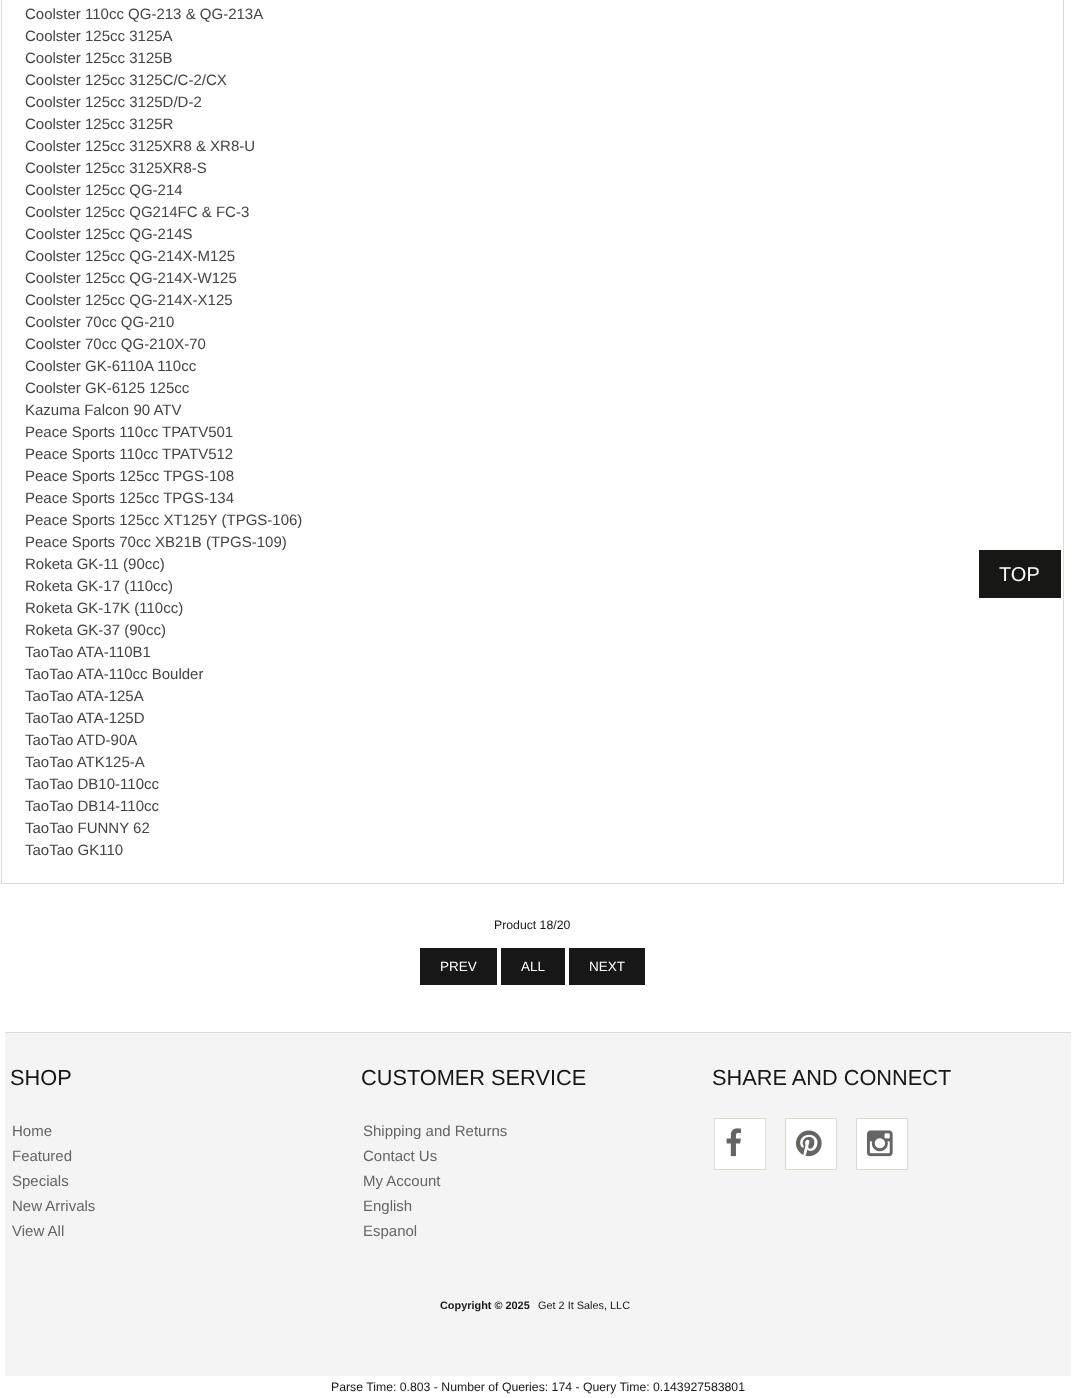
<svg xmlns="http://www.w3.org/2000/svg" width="1076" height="1398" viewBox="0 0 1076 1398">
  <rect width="100%" height="100%" fill="rgb(255,255,255)"/>
  <rect x="1.5" y="-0.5" width="1062" height="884" fill="none" stroke="rgb(219,219,206)"/>
  <g font-family="Liberation Sans" font-size="15" fill="rgb(68,68,68)">
    <text>
      <tspan x="25" y="19">Coolster 110cc QG-213 &amp; QG-213A</tspan>
      <tspan x="25" y="41">Coolster 125cc 3125A</tspan>
      <tspan x="25" y="63">Coolster 125cc 3125B</tspan>
      <tspan x="25" y="85">Coolster 125cc 3125C/C-2/CX</tspan>
      <tspan x="25" y="107">Coolster 125cc 3125D/D-2</tspan>
      <tspan x="25" y="129">Coolster 125cc 3125R</tspan>
      <tspan x="25" y="151">Coolster 125cc 3125XR8 &amp; XR8-U</tspan>
      <tspan x="25" y="173">Coolster 125cc 3125XR8-S</tspan>
      <tspan x="25" y="195">Coolster 125cc QG-214</tspan>
      <tspan x="25" y="217">Coolster 125cc QG214FC &amp; FC-3</tspan>
      <tspan x="25" y="239">Coolster 125cc QG-214S</tspan>
      <tspan x="25" y="261">Coolster 125cc QG-214X-M125</tspan>
      <tspan x="25" y="283">Coolster 125cc QG-214X-W125</tspan>
      <tspan x="25" y="305">Coolster 125cc QG-214X-X125</tspan>
      <tspan x="25" y="327">Coolster 70cc QG-210</tspan>
      <tspan x="25" y="349">Coolster 70cc QG-210X-70</tspan>
      <tspan x="25" y="371">Coolster GK-6110A 110cc</tspan>
      <tspan x="25" y="393">Coolster GK-6125 125cc</tspan>
      <tspan x="25" y="415">Kazuma Falcon 90 ATV</tspan>
      <tspan x="25" y="437">Peace Sports 110cc TPATV501</tspan>
      <tspan x="25" y="459">Peace Sports 110cc TPATV512</tspan>
      <tspan x="25" y="481">Peace Sports 125cc TPGS-108</tspan>
      <tspan x="25" y="503">Peace Sports 125cc TPGS-134</tspan>
      <tspan x="25" y="525">Peace Sports 125cc XT125Y (TPGS-106)</tspan>
      <tspan x="25" y="547">Peace Sports 70cc XB21B (TPGS-109)</tspan>
      <tspan x="25" y="569">Roketa GK-11 (90cc)</tspan>
      <tspan x="25" y="591">Roketa GK-17 (110cc)</tspan>
      <tspan x="25" y="613">Roketa GK-17K (110cc)</tspan>
      <tspan x="25" y="635">Roketa GK-37 (90cc)</tspan>
      <tspan x="25" y="657">TaoTao ATA-110B1</tspan>
      <tspan x="25" y="679">TaoTao ATA-110cc Boulder</tspan>
      <tspan x="25" y="701">TaoTao ATA-125A</tspan>
      <tspan x="25" y="723">TaoTao ATA-125D</tspan>
      <tspan x="25" y="745">TaoTao ATD-90A</tspan>
      <tspan x="25" y="767">TaoTao ATK125-A</tspan>
      <tspan x="25" y="789">TaoTao DB10-110cc</tspan>
      <tspan x="25" y="811">TaoTao DB14-110cc</tspan>
      <tspan x="25" y="833">TaoTao FUNNY 62</tspan>
      <tspan x="25" y="855">TaoTao GK110</tspan>
    </text>
  </g>
  <text x="494" y="929" font-family="Liberation Sans" font-size="12.25" fill="rgb(23,23,23)">Product 18/20</text>
  <rect x="420" y="948" width="77" height="37" fill="rgb(23,23,23)"/>
  <text x="440" y="971" font-family="Liberation Sans" font-size="13.5" fill="rgb(255,255,253)">PREV</text>
  <rect x="501" y="948" width="64" height="37" fill="rgb(23,23,23)"/>
  <text x="521" y="971" font-family="Liberation Sans" font-size="13.5" fill="rgb(255,255,253)">ALL</text>
  <rect x="569" y="948" width="76" height="37" fill="rgb(23,23,23)"/>
  <text x="589" y="971" font-family="Liberation Sans" font-size="13.5" fill="rgb(255,255,253)">NEXT</text>
  <rect x="979" y="550" width="82" height="48" fill="rgb(23,23,22)"/>
  <text x="999" y="581" font-family="Liberation Sans" font-size="20" fill="rgb(255,255,253)">TOP</text>
  <rect x="5" y="1032" width="1066" height="1" fill="rgb(219,219,206)"/>
  <rect x="5" y="1033" width="1066" height="343" fill="rgb(244,244,244)"/>
  <text x="10" y="1085" font-family="Liberation Sans" font-size="21.75" fill="rgb(23,23,23)">SHOP</text>
  <g font-family="Liberation Sans" font-size="15" fill="rgb(102,101,100)">
    <text>
      <tspan x="12" y="1136">Home</tspan>
      <tspan x="12" y="1161">Featured</tspan>
      <tspan x="12" y="1186">Specials</tspan>
      <tspan x="12" y="1211">New Arrivals</tspan>
      <tspan x="12" y="1236">View All</tspan>
    </text>
  </g>
  <text x="361" y="1085" font-family="Liberation Sans" font-size="21.75" fill="rgb(23,23,23)">CUSTOMER SERVICE</text>
  <g font-family="Liberation Sans" font-size="15" fill="rgb(102,101,100)">
    <text>
      <tspan x="363" y="1136">Shipping and Returns</tspan>
      <tspan x="363" y="1161">Contact Us</tspan>
      <tspan x="363" y="1186">My Account</tspan>
      <tspan x="363" y="1211">English</tspan>
      <tspan x="363" y="1236">Espanol</tspan>
    </text>
  </g>
  <text x="712" y="1085" font-family="Liberation Sans" font-size="21.75" fill="rgb(23,23,23)">SHARE AND CONNECT</text>
  <rect x="714.5" y="1118.5" width="51" height="51" fill="rgb(255,255,255)" stroke="rgb(219,219,206)"/>
  <image x="726" y="1128" width="15" height="29" href="pic1.png"/>
  <rect x="785.5" y="1118.5" width="51" height="51" fill="rgb(255,255,255)" stroke="rgb(219,219,206)"/>
  <image x="796" y="1130" width="26" height="27" href="pic2.png"/>
  <rect x="856.5" y="1118.5" width="51" height="51" fill="rgb(255,255,255)" stroke="rgb(219,219,206)"/>
  <image x="867" y="1130" width="26" height="27" href="pic3.png"/>
  <text x="440" y="1309" font-family="Liberation Sans" font-size="10.9" font-weight="bold" fill="rgb(23,23,23)">Copyright © 2025</text>
  <text x="538" y="1309" font-family="Liberation Sans" font-size="10.9" fill="rgb(23,23,23)">Get 2 It Sales, LLC</text>
  <text x="331" y="1391" font-family="Liberation Sans" font-size="12.25" fill="rgb(23,23,23)">Parse Time: 0.803 - Number of Queries: 174 - Query Time: 0.143927583801</text>
</svg>
